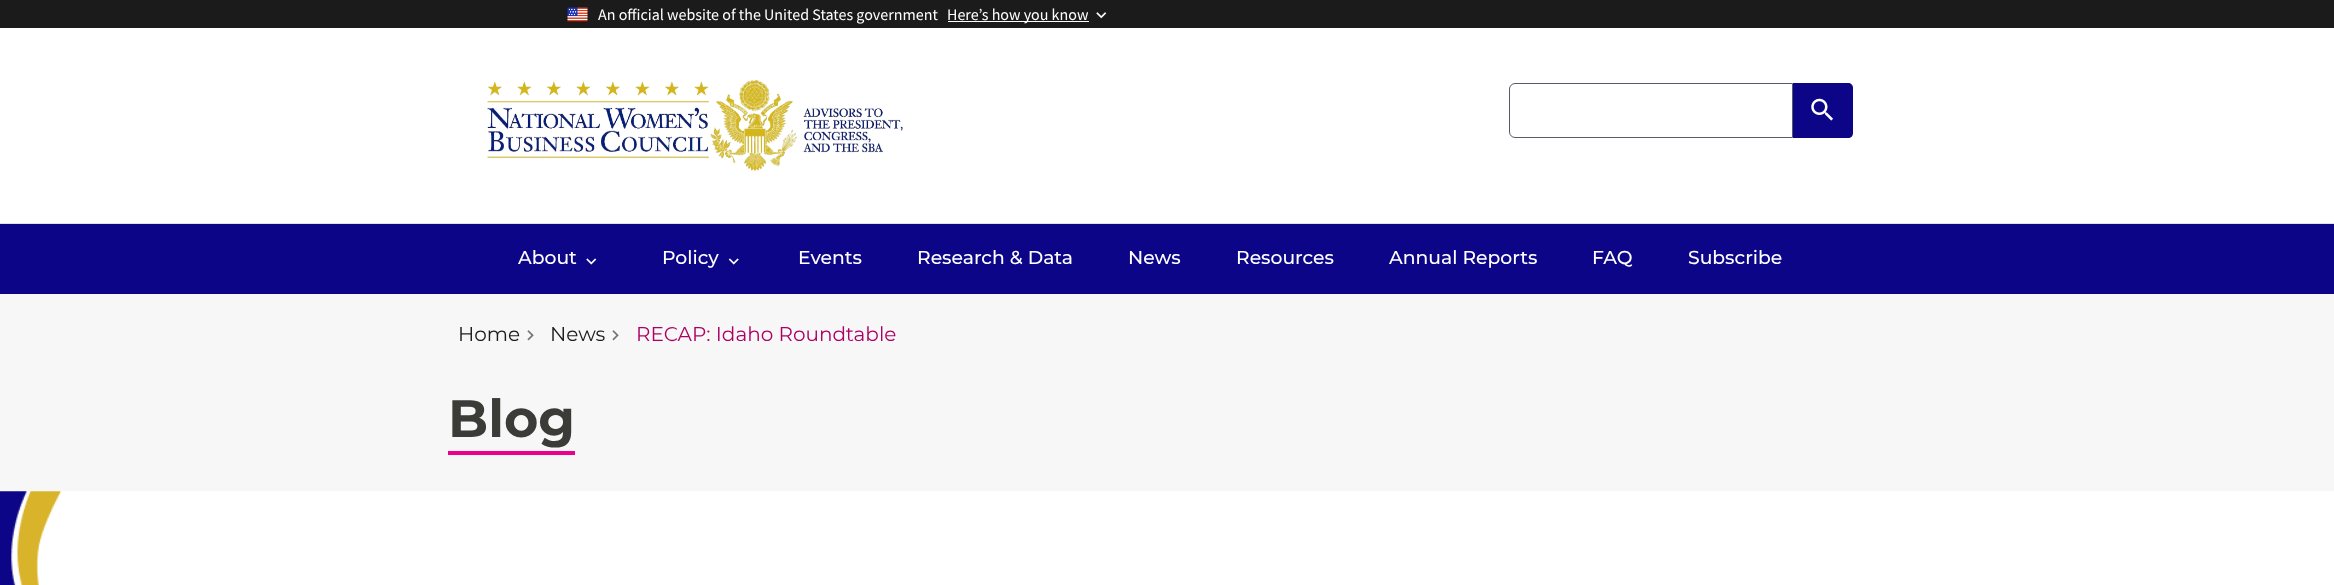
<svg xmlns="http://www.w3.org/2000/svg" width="2334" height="585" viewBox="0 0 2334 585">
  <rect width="100%" height="100%" fill="rgb(255,255,255)"/>
  <rect x="0" y="0" width="2334" height="28" fill="rgb(27,27,27)"/>
  <image x="567" y="7" width="21" height="15" href="pic1.png"/>
  <text x="598" y="20" font-family="Source Sans Pro" font-size="16" fill="rgb(255,255,255)">An official website of the United States government</text>
  <rect x="948" y="21" width="141" height="1" fill="rgb(255,255,255)"/>
  <text x="947" y="20" font-family="Source Sans Pro" font-size="16" fill="rgb(255,255,255)">Here’s how you know</text>
  <image x="1096" y="12" width="11" height="7" href="pic2.png"/>
  <image x="487" y="79" width="416" height="93" href="pic3.png"/>
  <rect x="0" y="224" width="2334" height="70" fill="rgb(12,5,135)"/>
  <rect x="0" y="223" width="2334" height="1" fill="rgb(223,225,226)"/>
  <path d="M1515 83.5H1792.5V137.5H1515C1512 137.5 1509.5 135 1509.5 132V89C1509.5 86 1512 83.5 1515 83.5Z" fill="none" stroke="rgb(86,92,101)"/>
  <path d="M1793 83H1848C1851 83 1853 85 1853 88V133C1853 136 1851 138 1848 138H1793Z" fill="rgb(12,5,135)"/>
  <image x="1811" y="98" width="22" height="23" href="pic4.png"/>
  <text x="518" y="264" font-family="Montserrat" font-size="18.75" font-weight="500" fill="rgb(255,255,255)">About</text>
  <image x="586" y="258" width="11" height="7" href="pic5.png"/>
  <text x="662" y="264" font-family="Montserrat" font-size="18.75" font-weight="500" fill="rgb(255,255,255)">Policy</text>
  <image x="728" y="258" width="11" height="7" href="pic6.png"/>
  <g font-family="Montserrat" font-size="18.75" font-weight="500" fill="rgb(255,255,255)">
    <text x="798" y="264">Events</text>
    <text x="917" y="264">Research &amp; Data</text>
    <text x="1128" y="264">News</text>
    <text x="1236" y="264">Resources</text>
    <text x="1389" y="264">Annual Reports</text>
    <text x="1592" y="264">FAQ</text>
    <text x="1688" y="264">Subscribe</text>
  </g>
  <rect x="0" y="294" width="2334" height="197" fill="rgb(247,247,247)"/>
  <text x="458" y="341" font-family="Montserrat" font-size="20" fill="rgb(27,27,27)">Home</text>
  <image x="527" y="330" width="7" height="11" href="pic7.png"/>
  <text x="550" y="341" font-family="Montserrat" font-size="20" fill="rgb(27,27,27)">News</text>
  <image x="612" y="330" width="7" height="11" href="pic7.png"/>
  <text x="636" y="341" font-family="Montserrat" font-size="20" fill="rgb(173,0,101)">RECAP: Idaho Roundtable</text>
  <text x="448" y="437" font-family="Montserrat" font-size="52.5" font-weight="bold" fill="rgb(59,59,56)">Blog</text>
  <rect x="448" y="451" width="127" height="4" fill="rgb(236,0,140)"/>
  <image x="0" y="491" width="62" height="94" href="pic8.png"/>
</svg>
